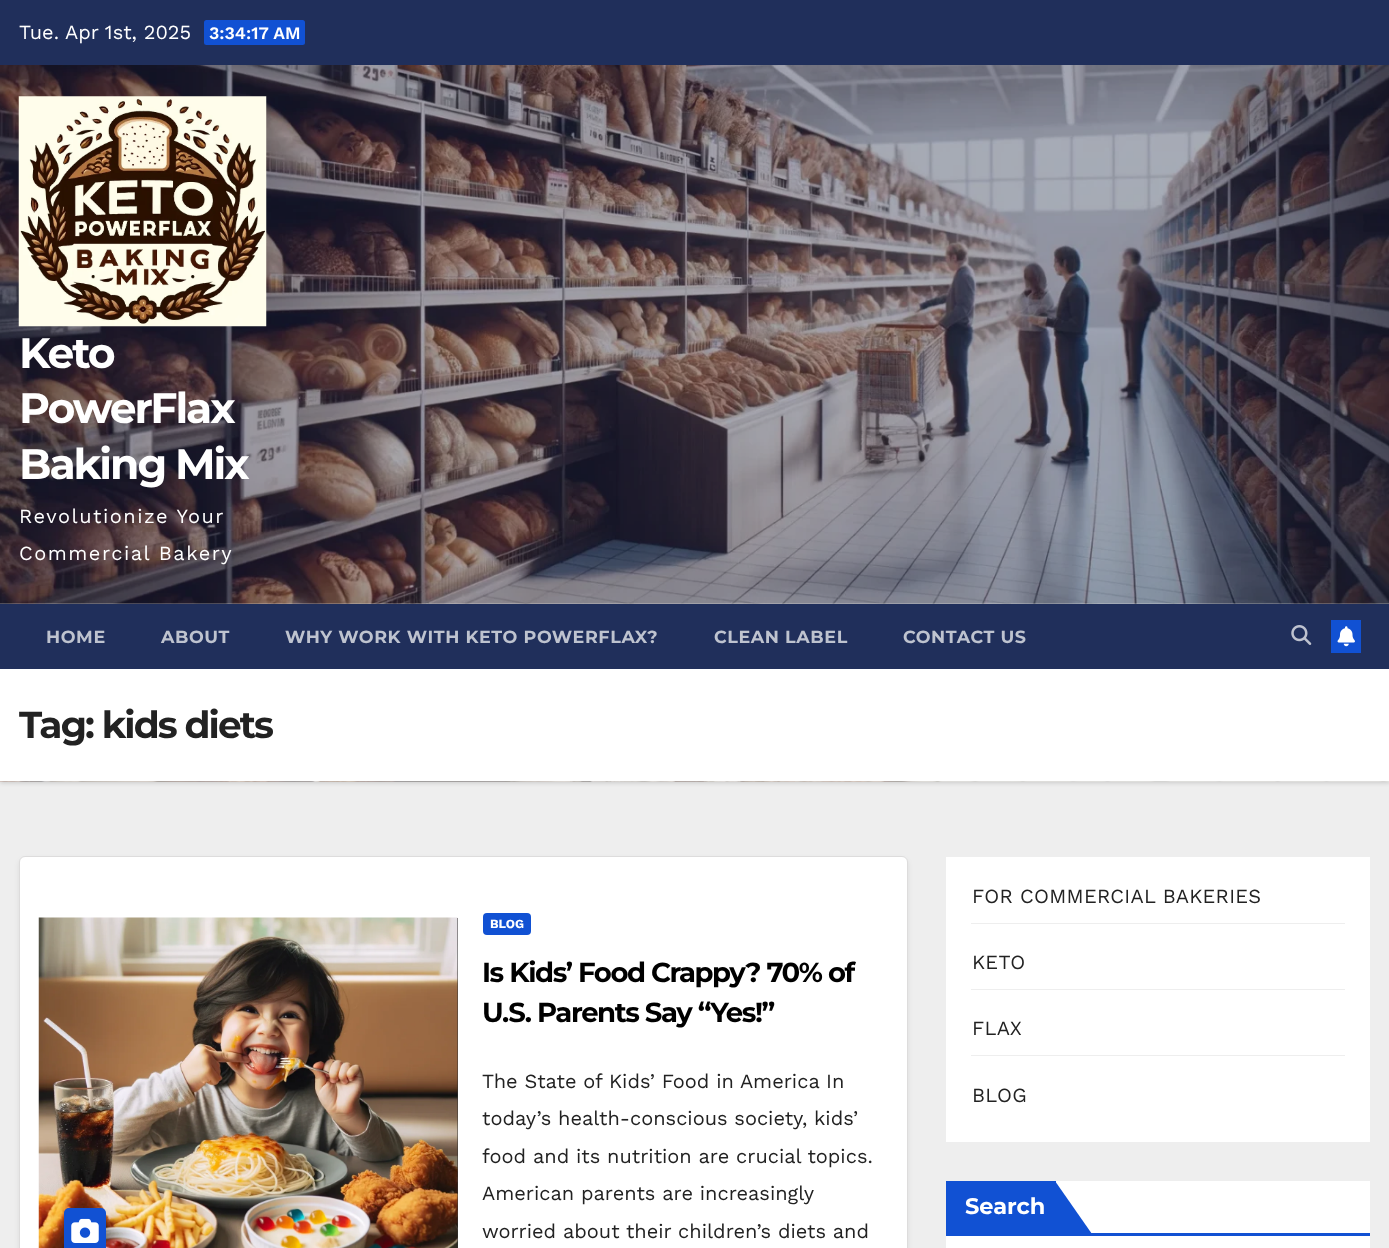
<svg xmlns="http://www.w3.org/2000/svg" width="1389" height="1248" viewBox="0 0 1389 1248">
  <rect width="100%" height="100%" fill="rgb(238,238,238)"/>
  <rect x="0" y="0" width="1389" height="65" fill="rgb(32,47,91)"/>
  <text x="19" y="39" font-family="Work Sans" font-size="20" fill="rgb(255,255,255)">Tue. Apr 1st, 2025</text>
  <rect x="204" y="20" width="101" height="25" rx="2.5" fill="rgb(17,81,211)"/>
  <text x="209" y="39" font-family="Work Sans" font-size="17.5" font-weight="600" fill="rgb(255,255,255)">3:34:17 AM</text>
  <image x="0" y="65" width="1389" height="539" href="pic1.png"/>
  <image x="18" y="96" width="249" height="231" href="pic2.png"/>
  <g font-family="Montserrat" font-size="42.5" font-weight="bold" letter-spacing="-2.1" fill="rgb(255,255,255)">
    <text>
      <tspan x="19" y="368">Keto</tspan>
      <tspan x="19" y="423">PowerFlax</tspan>
      <tspan x="19" y="479">Baking Mix</tspan>
    </text>
  </g>
  <g font-family="Work Sans" font-size="20" letter-spacing="1.5" fill="rgb(255,255,255)">
    <text>
      <tspan x="19" y="523">Revolutionize Your</tspan>
      <tspan x="19" y="560">Commercial Bakery</tspan>
    </text>
  </g>
  <rect x="0" y="670" width="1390" height="113" fill="rgba(0,0,0,0.15)" filter="blur(2px)"/>
  <rect x="0" y="604" width="1389" height="65" fill="rgb(32,47,91)"/>
  <g font-family="Montserrat" font-size="17.5" font-weight="bold" letter-spacing="0.6" fill="rgb(190,195,207)">
    <text x="46" y="643">HOME</text>
    <text x="161" y="643">ABOUT</text>
    <text x="285" y="643">WHY WORK WITH KETO POWERFLAX?</text>
    <text x="714" y="643">CLEAN LABEL</text>
    <text x="903" y="643">CONTACT US</text>
  </g>
  <image x="1291" y="625" width="21" height="20" href="pic3.png"/>
  <rect x="1331" y="620" width="30" height="33" fill="rgb(17,81,211)"/>
  <image x="1337" y="626" width="18" height="21" href="pic4.png"/>
  <image x="0" y="781" width="1389" height="1" href="pic5.png"/>
  <rect x="0" y="669" width="1389" height="112" fill="rgb(255,255,255)"/>
  <text x="19" y="738" font-family="Montserrat" font-size="37.5" font-weight="bold" letter-spacing="-1.9" fill="rgb(34,34,34)">Tag: kids diets</text>
  <rect x="19" y="859" width="889" height="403" rx="6" fill="rgba(0,0,0,0.08)" filter="blur(2.5px)"/>
  <rect x="19.5" y="856.5" width="888" height="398" rx="5.5" fill="rgb(255,255,255)" stroke="rgb(221,220,220)"/>
  <rect x="457" y="918" width="1" height="330" fill="rgb(51,51,51)"/>
  <image x="38" y="917" width="420" height="331" href="pic6.png"/>
  <rect x="64" y="1208" width="42" height="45" rx="5" fill="rgb(17,81,211)"/>
  <image x="71" y="1218" width="28" height="25" href="pic7.png"/>
  <rect x="483" y="913" width="48" height="22" rx="4" fill="rgb(17,81,211)"/>
  <text x="490" y="928" font-family="Work Sans" font-size="12.5" font-weight="bold" fill="rgb(255,255,255)">BLOG</text>
  <g font-family="Montserrat" font-size="27.5" font-weight="bold" letter-spacing="-1.4" fill="rgb(0,0,0)">
    <text>
      <tspan x="482" y="982">Is Kids’ Food Crappy? 70% of</tspan>
      <tspan x="482" y="1022">U.S. Parents Say “Yes!”</tspan>
    </text>
  </g>
  <g font-family="Work Sans" font-size="20" fill="rgb(34,34,34)">
    <text>
      <tspan x="482" y="1088">The State of Kids’ Food in America In</tspan>
      <tspan x="482" y="1125">today’s health-conscious society, kids’</tspan>
      <tspan x="482" y="1163">food and its nutrition are crucial topics.</tspan>
      <tspan x="482" y="1200">American parents are increasingly</tspan>
      <tspan x="482" y="1238">worried about their children’s diets and</tspan>
    </text>
  </g>
  <rect x="946" y="857" width="424" height="285" fill="rgb(255,255,255)"/>
  <rect x="971" y="923" width="374" height="1" fill="rgb(238,238,238)"/>
  <text x="972" y="903" font-family="Work Sans" font-size="20" letter-spacing="0.25" fill="rgb(34,34,34)">FOR COMMERCIAL BAKERIES</text>
  <rect x="971" y="989" width="374" height="1" fill="rgb(238,238,238)"/>
  <text x="972" y="969" font-family="Work Sans" font-size="20" letter-spacing="0.25" fill="rgb(34,34,34)">KETO</text>
  <rect x="971" y="1055" width="374" height="1" fill="rgb(238,238,238)"/>
  <g font-family="Work Sans" font-size="20" letter-spacing="0.25" fill="rgb(34,34,34)">
    <text x="972" y="1035">FLAX</text>
    <text x="972" y="1102">BLOG</text>
  </g>
  <rect x="946" y="1181" width="424" height="67" fill="rgb(255,255,255)"/>
  <rect x="946" y="1181" width="110" height="52" fill="rgb(17,81,211)"/>
  <text x="965" y="1214" font-family="Montserrat" font-size="22.5" font-weight="bold" fill="rgb(255,255,255)">Search</text>
  <path d="M1055 1234V1181L1092 1234Z" fill="rgb(17,81,211)"/>
  <rect x="946" y="1233" width="424" height="3" fill="rgb(17,81,211)"/>
</svg>
